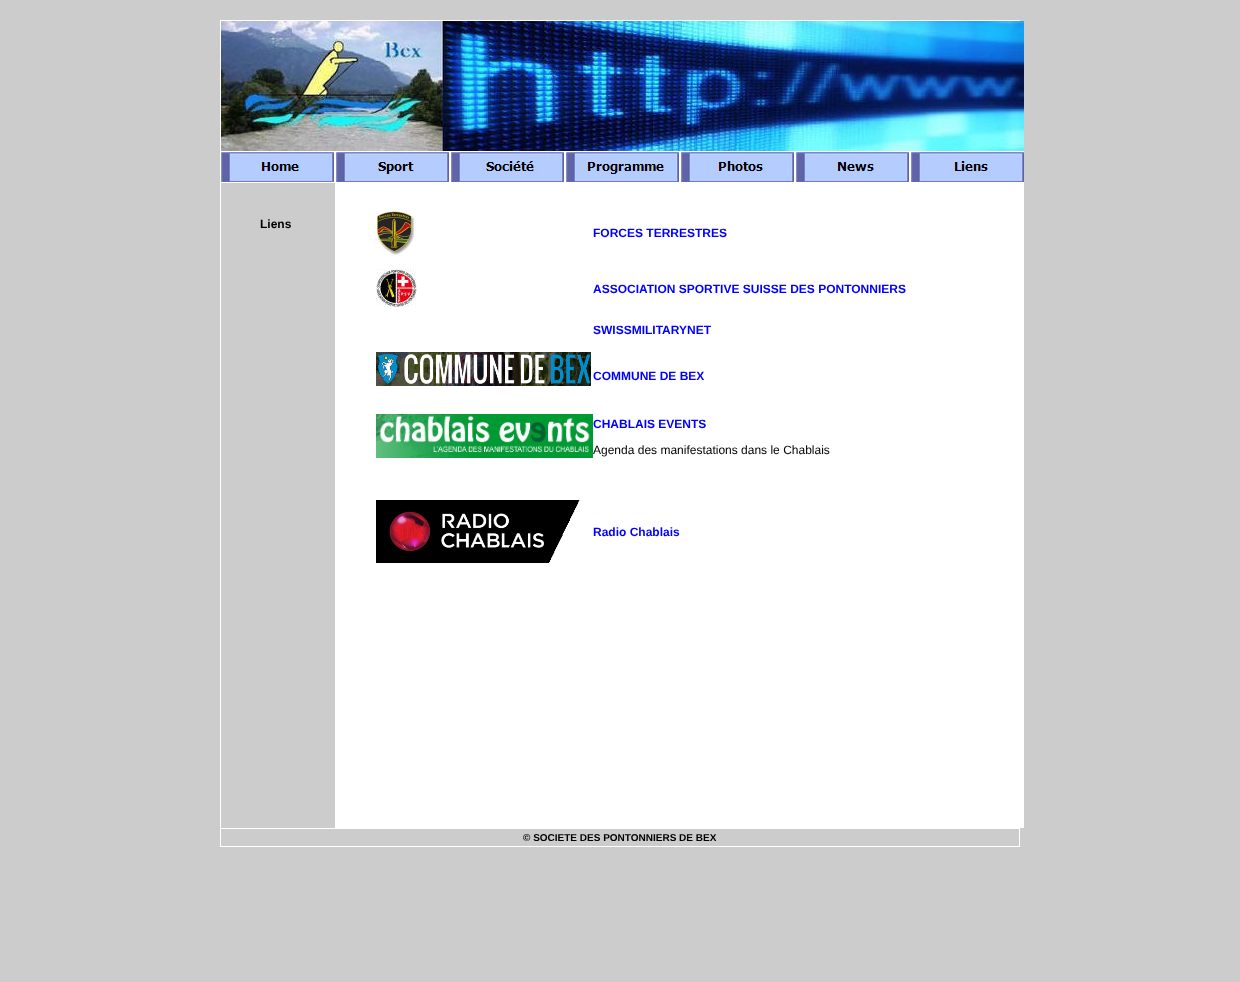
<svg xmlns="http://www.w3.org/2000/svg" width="1240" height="982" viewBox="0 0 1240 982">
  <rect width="100%" height="100%" fill="rgb(204,204,204)"/>
  <rect x="220.5" y="20.5" width="799" height="826" fill="none" stroke="rgb(255,255,255)"/>
  <image x="221" y="21" width="803" height="130" href="pic1.png"/>
  <rect x="221" y="151" width="114" height="1" fill="rgb(255,255,255)"/>
  <rect x="334" y="151" width="1" height="32" fill="rgb(255,255,255)"/>
  <rect x="221" y="182" width="114" height="1" fill="rgb(255,255,255)"/>
  <image x="221" y="152" width="113" height="30" href="pic2.png"/>
  <rect x="335.5" y="151.5" width="114" height="31" fill="none" stroke="rgb(255,255,255)"/>
  <image x="336" y="152" width="113" height="30" href="pic3.png"/>
  <rect x="450.5" y="151.5" width="114" height="31" fill="none" stroke="rgb(255,255,255)"/>
  <image x="451" y="152" width="113" height="30" href="pic4.png"/>
  <rect x="565.5" y="151.5" width="114" height="31" fill="none" stroke="rgb(255,255,255)"/>
  <image x="566" y="152" width="113" height="30" href="pic5.png"/>
  <rect x="680.5" y="151.5" width="114" height="31" fill="none" stroke="rgb(255,255,255)"/>
  <image x="681" y="152" width="113" height="30" href="pic6.png"/>
  <rect x="795.5" y="151.5" width="114" height="31" fill="none" stroke="rgb(255,255,255)"/>
  <image x="796" y="152" width="113" height="30" href="pic7.png"/>
  <rect x="910" y="151" width="114" height="1" fill="rgb(255,255,255)"/>
  <rect x="910" y="182" width="114" height="1" fill="rgb(255,255,255)"/>
  <rect x="910" y="151" width="1" height="32" fill="rgb(255,255,255)"/>
  <image x="911" y="152" width="113" height="30" href="pic8.png"/>
  <rect x="335" y="183" width="689" height="645" fill="rgb(255,255,255)"/>
  <text x="260" y="228" font-family="Liberation Sans" font-size="12" font-weight="bold" fill="rgb(0,0,0)">Liens</text>
  <image x="377" y="211" width="37" height="44" href="pic9.png"/>
  <text x="593" y="237" font-family="Liberation Sans" font-size="12" font-weight="bold" fill="rgb(0,0,255)">FORCES TERRESTRES</text>
  <image x="376" y="269" width="41" height="38" href="pic10.png"/>
  <g font-family="Liberation Sans" font-size="12" font-weight="bold" fill="rgb(0,0,255)">
    <text x="593" y="293">ASSOCIATION SPORTIVE SUISSE DES PONTONNIERS</text>
    <text x="593" y="334">SWISSMILITARYNET</text>
  </g>
  <image x="376" y="352" width="215" height="34" href="pic11.png"/>
  <text x="593" y="380" font-family="Liberation Sans" font-size="12" font-weight="bold" fill="rgb(0,0,255)">COMMUNE DE BEX</text>
  <image x="376" y="414" width="217" height="44" href="pic12.png"/>
  <text x="593" y="428" font-family="Liberation Sans" font-size="12" font-weight="bold" fill="rgb(0,0,255)">CHABLAIS EVENTS</text>
  <text x="593" y="454" font-family="Liberation Sans" font-size="12" fill="rgb(0,0,0)">Agenda des manifestations dans le Chablais</text>
  <image x="376" y="500" width="204" height="63" href="pic13.png"/>
  <text x="593" y="536" font-family="Liberation Sans" font-size="12" font-weight="bold" fill="rgb(0,0,255)">Radio Chablais</text>
  <rect x="221" y="828" width="798" height="1" fill="rgb(255,255,255)"/>
  <text x="523" y="841" font-family="Liberation Sans" font-size="10" font-weight="bold" fill="rgb(0,0,0)">© SOCIETE DES PONTONNIERS DE BEX</text>
</svg>
